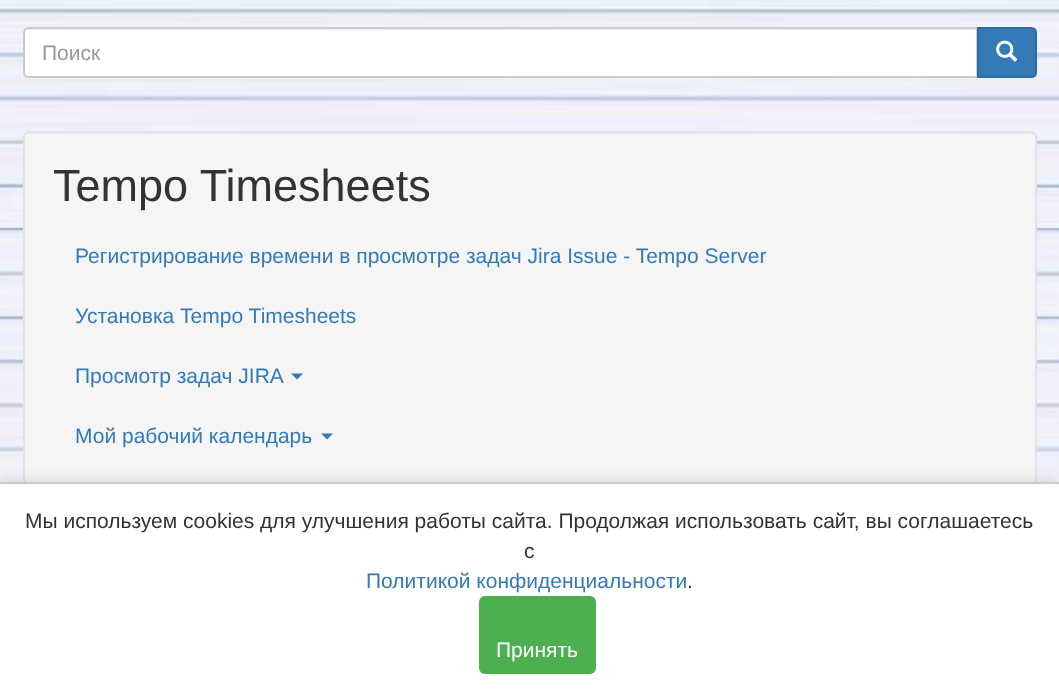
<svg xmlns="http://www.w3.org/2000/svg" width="1059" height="696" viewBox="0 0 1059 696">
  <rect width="100%" height="100%" fill="rgb(255,255,255)"/>
  <image x="0" y="0" width="1059" height="482" href="pic1.png"/>
  <path d="M29 27H978V78H29C25.5 78 23 75.5 23 72V33C23 29.5 25.5 27 29 27Z" fill="rgb(255,255,255)"/>
  <path d="M28 30H976V77H977V29H29C26 29 24 31 24 34C24 32 26 30 28 30Z" fill="rgb(236,236,236)"/>
  <path d="M29 28H977V77H29C26 77 24 75 24 72V33C24 30 26 28 29 28Z" fill="none" stroke="rgb(204,204,204)" stroke-width="2"/>
  <text x="42" y="60" font-family="Liberation Sans" font-size="21" fill="rgb(153,153,153)">Поиск</text>
  <path d="M978 28H1031C1034 28 1036 30 1036 33V72C1036 75 1034 77 1031 77H978Z" fill="rgb(51,122,183)" stroke="rgb(46,109,164)" stroke-width="2"/>
  <image x="996" y="40" width="22" height="22" href="pic2.png"/>
  <rect x="23" y="131" width="1014" height="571" rx="6" fill="rgb(245,245,245)"/>
  <path d="M28 134H1030C1033 134 1035 136 1035 138C1035 135 1033 132 1030 132H29C26 132 24 135 24 138C24 136 26 134 28 134Z" fill="rgb(233,233,233)"/>
  <rect x="24" y="132" width="1012" height="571" rx="5" fill="none" stroke="rgb(227,227,227)" stroke-width="2"/>
  <rect x="0" y="479" width="1059" height="214" fill="rgba(0,0,0,0.1)" filter="blur(6px)"/>
  <rect x="0" y="484" width="1059" height="212" fill="rgb(255,255,255)"/>
  <rect x="0" y="482" width="1059" height="2" fill="rgb(204,204,204)"/>
  <g font-family="Liberation Sans" font-size="21" fill="rgb(51,51,51)">
    <text x="25" y="528">Мы используем cookies для улучшения работы сайта. Продолжая использовать сайт, вы соглашаетесь</text>
    <text x="524" y="558">с</text>
  </g>
  <text x="366" y="588" font-family="Liberation Sans" font-size="21" fill="rgb(51,122,183)">Политикой конфиденциальности</text>
  <text x="687" y="588" font-family="Liberation Sans" font-size="21" fill="rgb(51,51,51)">.</text>
  <rect x="479" y="596" width="117" height="78" rx="6" fill="rgb(76,175,80)"/>
  <text x="496" y="657" font-family="Liberation Sans" font-size="21" fill="rgb(255,255,255)">Принять</text>
  <text x="53" y="201" font-family="Liberation Sans" font-size="45" fill="rgb(51,51,51)">Tempo Timesheets</text>
  <g font-family="Liberation Sans" font-size="21" fill="rgb(51,122,183)">
    <text x="75" y="263">Регистрирование времени в просмотре задач Jira Issue - Tempo Server</text>
    <text x="75" y="323">Установка Tempo Timesheets</text>
    <text x="75" y="383">Просмотр задач JIRA</text>
  </g>
  <path d="M291 373.5H303L297 379.5Z" fill="rgb(51,122,183)"/>
  <text x="75" y="443" font-family="Liberation Sans" font-size="21" fill="rgb(51,122,183)">Мой рабочий календарь</text>
  <path d="M321 433.5H333L327 439.5Z" fill="rgb(51,122,183)"/>
</svg>
